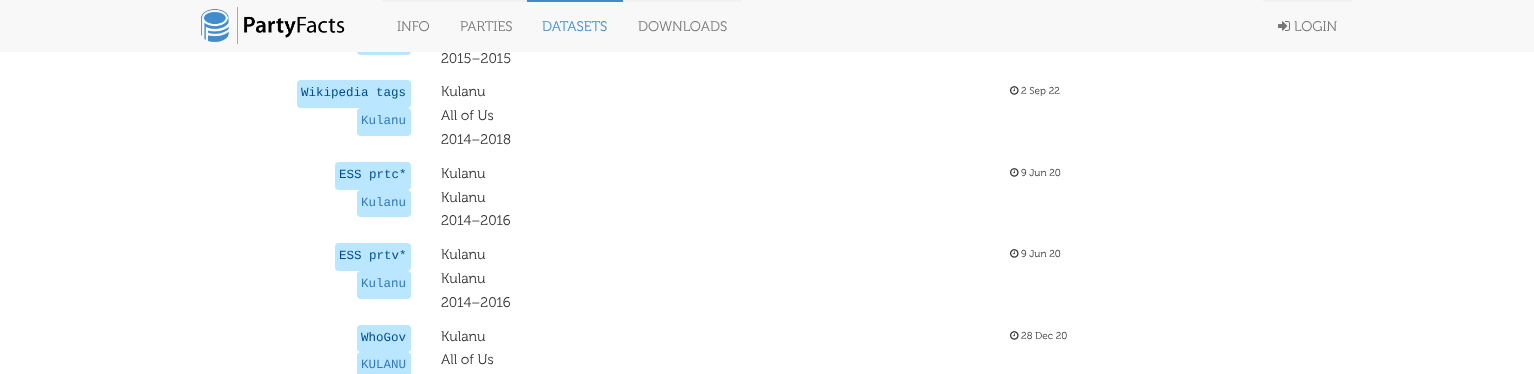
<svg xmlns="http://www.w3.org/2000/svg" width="1534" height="374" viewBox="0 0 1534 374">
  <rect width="100%" height="100%" fill="rgb(255,255,255)"/>
  <rect x="357" y="27" width="54" height="28" rx="4" fill="rgb(186,230,255)"/>
  <rect x="0" y="0" width="1534" height="52" fill="rgb(248,248,248)"/>
  <image x="201" y="7" width="144" height="37" href="pic1.png"/>
  <rect x="382" y="0" width="145" height="2" fill="rgb(242,242,242)"/>
  <g font-family="'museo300'" font-size="14" fill="rgb(119,119,119)">
    <text x="397" y="31">INFO</text>
    <text x="460" y="31">PARTIES</text>
  </g>
  <rect x="527" y="0" width="96" height="2" fill="rgb(66,139,202)"/>
  <text x="542" y="31" font-family="'museo300'" font-size="14" fill="rgb(66,139,202)">DATASETS</text>
  <rect x="623" y="0" width="119" height="2" fill="rgb(242,242,242)"/>
  <text x="638" y="31" font-family="'museo300'" font-size="14" fill="rgb(119,119,119)">DOWNLOADS</text>
  <rect x="1263" y="0" width="89" height="2" fill="rgb(242,242,242)"/>
  <image x="1278" y="21" width="12" height="10" href="pic2.png"/>
  <text x="1294" y="31" font-family="'museo300'" font-size="14" fill="rgb(119,119,119)">LOGIN</text>
  <text x="441" y="63" font-family="'museo300'" font-size="14" fill="rgb(51,51,51)">2015–2015</text>
  <rect x="297" y="80" width="114" height="28" rx="4" fill="rgb(186,230,255)"/>
  <text x="301" y="96" font-family="Liberation Mono" font-size="12.5" fill="rgb(0,77,138)">Wikipedia tags</text>
  <rect x="357" y="108" width="54" height="28" rx="4" fill="rgb(186,230,255)"/>
  <text x="361" y="124" font-family="Liberation Mono" font-size="12.5" fill="rgb(51,122,183)">Kulanu</text>
  <g font-family="'museo300'" font-size="14" fill="rgb(51,51,51)">
    <text>
      <tspan x="441" y="96">Kulanu</tspan>
      <tspan x="441" y="120">All of Us</tspan>
      <tspan x="441" y="144">2014–2018</tspan>
    </text>
  </g>
  <image x="1010" y="86" width="9" height="9" href="pic3.png"/>
  <text x="1021" y="94" font-family="'museo300'" font-size="10" fill="rgb(51,51,51)">2 Sep 22</text>
  <rect x="335" y="162" width="76" height="28" rx="4" fill="rgb(186,230,255)"/>
  <text x="339" y="178" font-family="Liberation Mono" font-size="12.5" fill="rgb(0,77,138)">ESS prtc*</text>
  <rect x="357" y="190" width="54" height="27" rx="4" fill="rgb(186,230,255)"/>
  <text x="361" y="206" font-family="Liberation Mono" font-size="12.5" fill="rgb(51,122,183)">Kulanu</text>
  <g font-family="'museo300'" font-size="14" fill="rgb(51,51,51)">
    <text>
      <tspan x="441" y="178">Kulanu</tspan>
      <tspan x="441" y="202">Kulanu</tspan>
      <tspan x="441" y="225">2014–2016</tspan>
    </text>
  </g>
  <image x="1010" y="168" width="9" height="9" href="pic3.png"/>
  <text x="1021" y="176" font-family="'museo300'" font-size="10" fill="rgb(51,51,51)">9 Jun 20</text>
  <rect x="335" y="243" width="76" height="28" rx="4" fill="rgb(186,230,255)"/>
  <text x="339" y="259" font-family="Liberation Mono" font-size="12.5" fill="rgb(0,77,138)">ESS prtv*</text>
  <rect x="357" y="271" width="54" height="28" rx="4" fill="rgb(186,230,255)"/>
  <text x="361" y="287" font-family="Liberation Mono" font-size="12.5" fill="rgb(51,122,183)">Kulanu</text>
  <g font-family="'museo300'" font-size="14" fill="rgb(51,51,51)">
    <text>
      <tspan x="441" y="259">Kulanu</tspan>
      <tspan x="441" y="283">Kulanu</tspan>
      <tspan x="441" y="307">2014–2016</tspan>
    </text>
  </g>
  <image x="1010" y="249" width="9" height="9" href="pic3.png"/>
  <text x="1021" y="257" font-family="'museo300'" font-size="10" fill="rgb(51,51,51)">9 Jun 20</text>
  <rect x="357" y="325" width="54" height="27" rx="4" fill="rgb(186,230,255)"/>
  <text x="361" y="341" font-family="Liberation Mono" font-size="12.5" fill="rgb(0,77,138)">WhoGov</text>
  <rect x="357" y="352" width="54" height="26" rx="4" fill="rgb(186,230,255)"/>
  <text x="361" y="368" font-family="Liberation Mono" font-size="12.5" fill="rgb(51,122,183)">KULANU</text>
  <g font-family="'museo300'" font-size="14" fill="rgb(51,51,51)">
    <text>
      <tspan x="441" y="341">Kulanu</tspan>
      <tspan x="441" y="364">All of Us</tspan>
    </text>
  </g>
  <image x="1010" y="331" width="9" height="9" href="pic3.png"/>
  <text x="1021" y="339" font-family="'museo300'" font-size="10" fill="rgb(51,51,51)">28 Dec 20</text>
</svg>
